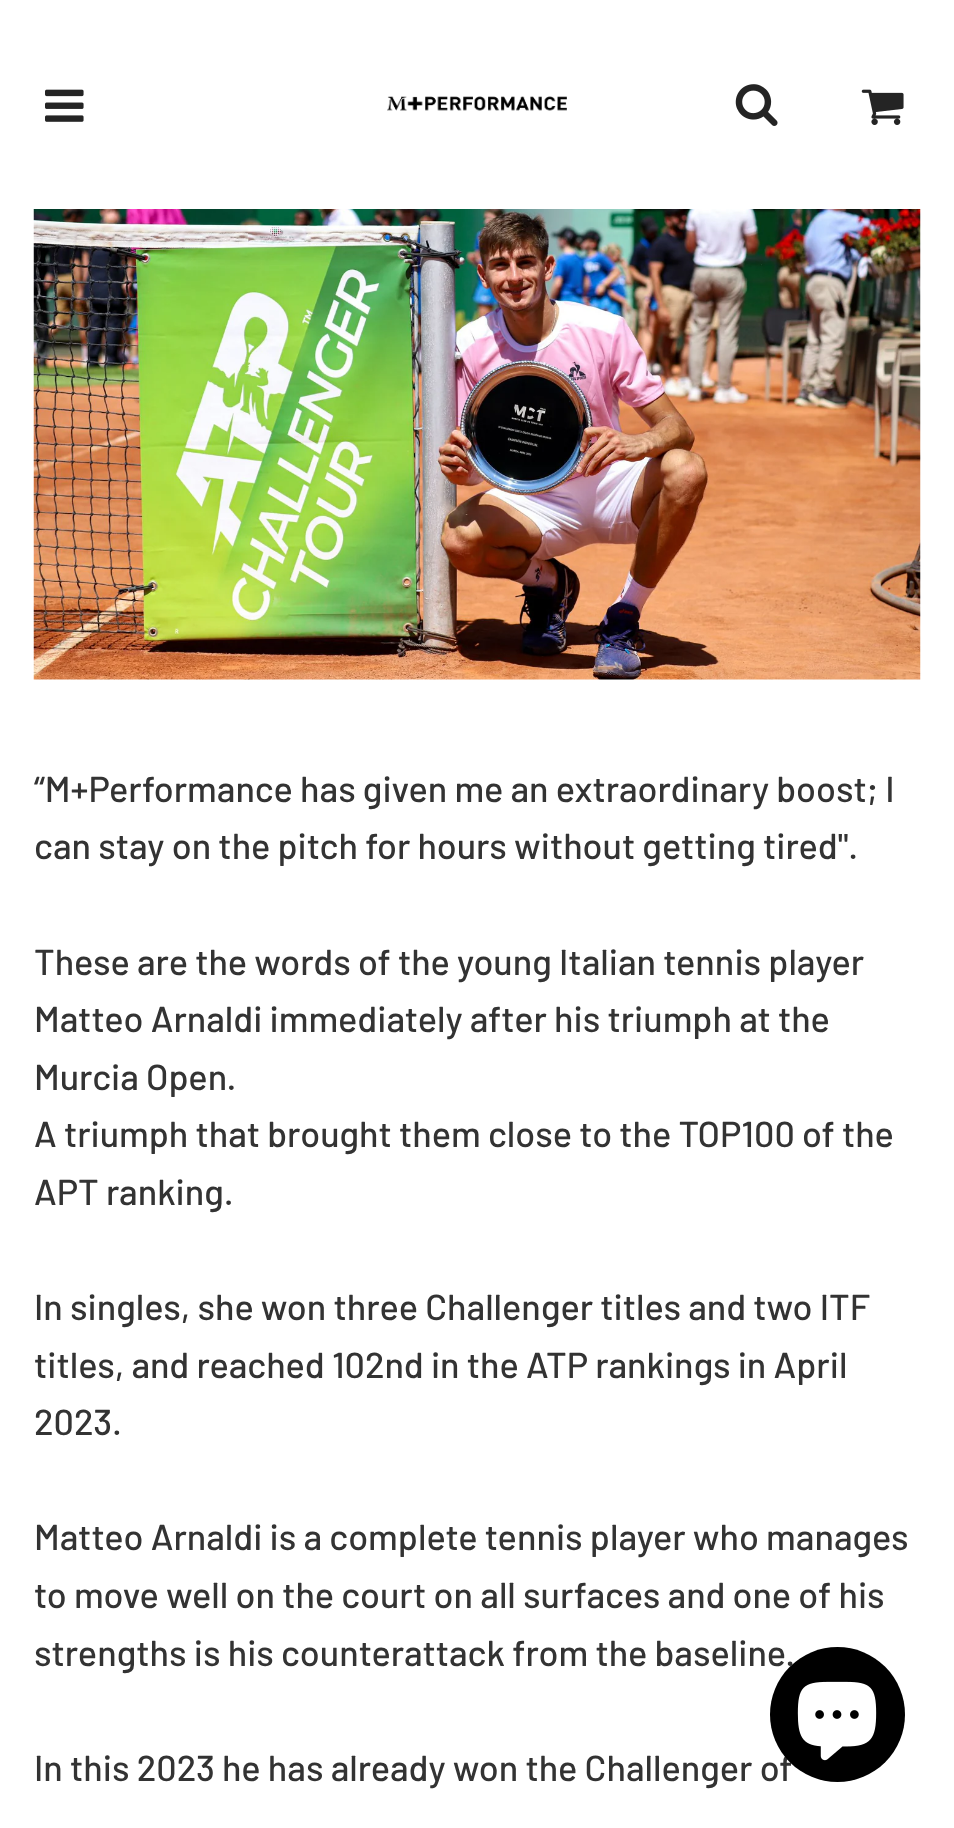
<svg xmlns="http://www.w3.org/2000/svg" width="954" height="1828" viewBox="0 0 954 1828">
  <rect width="100%" height="100%" fill="rgb(255,255,255)"/>
  <image x="45" y="89" width="39" height="33" href="pic1.png"/>
  <image x="387" y="96" width="180" height="15" href="pic2.png"/>
  <image x="735" y="84" width="43" height="42" href="pic3.png"/>
  <image x="861" y="89" width="43" height="36" href="pic4.png"/>
  <image x="33" y="209" width="888" height="471" href="pic5.png"/>
  <g font-family="Barlow" font-size="36" font-weight="500" fill="rgb(51,51,51)">
    <text>
      <tspan x="34" y="802">“M+Performance has given me an extraordinary boost; I</tspan>
      <tspan x="34" y="859">can stay on the pitch for hours without getting tired".</tspan>
    </text>
    <text>
      <tspan x="34" y="975">These are the words of the young Italian tennis player</tspan>
      <tspan x="34" y="1032">Matteo Arnaldi immediately after his triumph at the</tspan>
      <tspan x="34" y="1090">Murcia Open.</tspan>
      <tspan x="34" y="1147">A triumph that brought them close to the TOP100 of the</tspan>
      <tspan x="34" y="1205">APT ranking.</tspan>
    </text>
    <text>
      <tspan x="34" y="1320">In singles, she won three Challenger titles and two ITF</tspan>
      <tspan x="34" y="1378">titles, and reached 102nd in the ATP rankings in April</tspan>
      <tspan x="34" y="1435">2023.</tspan>
    </text>
    <text>
      <tspan x="34" y="1550">Matteo Arnaldi is a complete tennis player who manages</tspan>
      <tspan x="34" y="1608">to move well on the court on all surfaces and one of his</tspan>
      <tspan x="34" y="1666">strengths is his counterattack from the baseline.</tspan>
    </text>
    <text x="34" y="1781">In this 2023 he has already won the Challenger of</text>
  </g>
  <circle cx="837.5" cy="1714.5" r="67.5" fill="rgb(0,0,0)"/>
  <image x="797" y="1681" width="80" height="80" href="pic6.png"/>
</svg>
